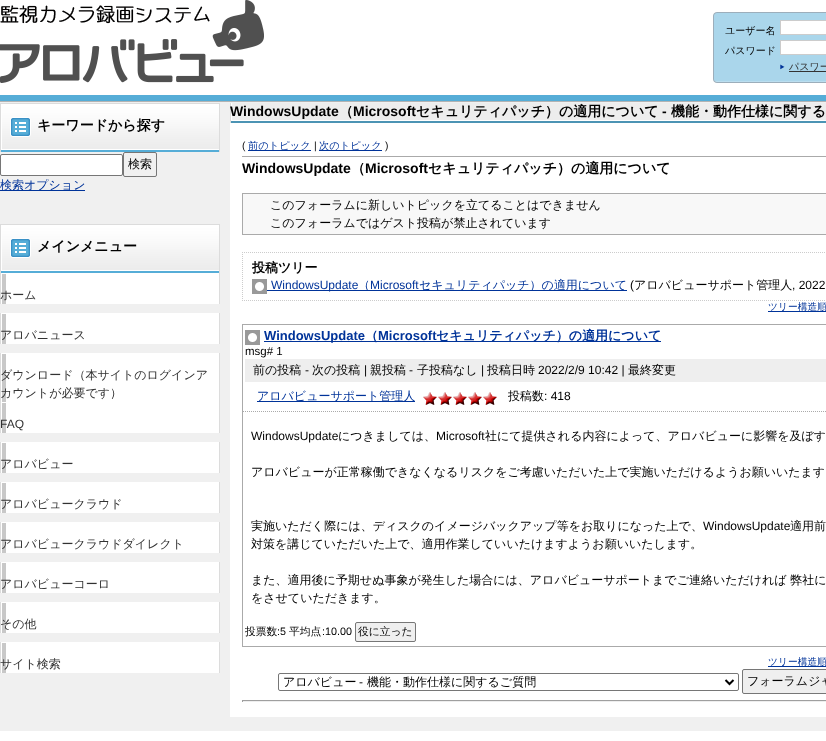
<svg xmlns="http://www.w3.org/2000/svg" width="826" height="741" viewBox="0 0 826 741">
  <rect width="100%" height="100%" fill="rgb(240,240,240)"/>
  <image x="0" y="0" width="826" height="102" href="pic1.png"/>
  <image x="0" y="0" width="264" height="83" href="pic2.png"/>
  <image x="713" y="12" width="113" height="71" href="pic3.png"/>
  <text x="725" y="34" font-family="WenQuanYi Zen Hei" font-size="10" font-weight="500" fill="rgb(0,0,0)">ユーザー名</text>
  <rect x="780.5" y="20.5" width="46" height="14" fill="rgb(255,255,255)" stroke="rgb(204,204,204)"/>
  <text x="725" y="54" font-family="WenQuanYi Zen Hei" font-size="10" font-weight="500" fill="rgb(0,0,0)">パスワード</text>
  <rect x="780.5" y="40.5" width="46" height="14" fill="rgb(255,255,255)" stroke="rgb(204,204,204)"/>
  <image x="780" y="64" width="5" height="6" href="pic4.png"/>
  <rect x="789" y="71" width="37" height="1" fill="rgb(51,51,51)"/>
  <text x="789" y="70" font-family="WenQuanYi Zen Hei" font-size="10" font-weight="500" fill="rgb(50,50,50)">パスワー</text>
  <image x="0" y="103" width="220" height="49" href="pic5.png"/>
  <text x="37" y="130" font-family="WenQuanYi Zen Hei" font-size="14" font-weight="bold" fill="rgb(0,0,0)">キーワードから探す</text>
  <rect x="0.5" y="154.5" width="122" height="21" rx="1.5" fill="rgb(255,255,255)" stroke="rgb(118,118,118)"/>
  <rect x="123.5" y="152.5" width="33" height="24" rx="1.5" fill="none" stroke="rgb(118,118,118)"/>
  <text x="128" y="168" font-family="WenQuanYi Zen Hei" font-size="12" font-weight="500" fill="rgb(0,0,0)">検索</text>
  <rect x="0" y="190" width="85" height="1" fill="rgb(0,51,153)"/>
  <text x="0" y="189" font-family="WenQuanYi Zen Hei" font-size="12" font-weight="500" fill="rgb(0,51,153)">検索オプション</text>
  <image x="0" y="224" width="220" height="49" href="pic5.png"/>
  <text x="37" y="251" font-family="WenQuanYi Zen Hei" font-size="14" font-weight="bold" fill="rgb(0,0,0)">メインメニュー</text>
  <image x="0" y="273" width="220" height="31" href="pic6.png"/>
  <text x="0" y="299" font-family="WenQuanYi Zen Hei" font-size="12" font-weight="500" fill="rgb(50,50,50)">ホーム</text>
  <image x="0" y="313" width="220" height="31" href="pic6.png"/>
  <text x="0" y="339" font-family="WenQuanYi Zen Hei" font-size="12" font-weight="500" fill="rgb(50,50,50)">アロバニュース</text>
  <image x="0" y="353" width="220" height="49" href="pic7.png"/>
  <g font-family="WenQuanYi Zen Hei" font-size="12" font-weight="500" fill="rgb(50,50,50)">
    <text>
      <tspan x="0" y="379">ダウンロード（本サイトのログインア</tspan>
      <tspan x="0" y="397">カウントが必要です）</tspan>
    </text>
  </g>
  <image x="0" y="402" width="220" height="31" href="pic6.png"/>
  <text x="0" y="428" font-family="Liberation Sans" font-size="12" fill="rgb(50,50,50)">FAQ</text>
  <image x="0" y="442" width="220" height="31" href="pic6.png"/>
  <text x="0" y="468" font-family="WenQuanYi Zen Hei" font-size="12" font-weight="500" fill="rgb(50,50,50)">アロバビュー</text>
  <image x="0" y="482" width="220" height="31" href="pic6.png"/>
  <text x="0" y="508" font-family="WenQuanYi Zen Hei" font-size="12" font-weight="500" fill="rgb(50,50,50)">アロバビュークラウド</text>
  <image x="0" y="522" width="220" height="31" href="pic6.png"/>
  <text x="0" y="548" font-family="WenQuanYi Zen Hei" font-size="12" font-weight="500" fill="rgb(50,50,50)">アロバビュークラウドダイレクト</text>
  <image x="0" y="562" width="220" height="31" href="pic6.png"/>
  <text x="0" y="588" font-family="WenQuanYi Zen Hei" font-size="12" font-weight="500" fill="rgb(50,50,50)">アロバビューコーロ</text>
  <image x="0" y="602" width="220" height="31" href="pic6.png"/>
  <text x="0" y="628" font-family="WenQuanYi Zen Hei" font-size="12" font-weight="500" fill="rgb(50,50,50)">その他</text>
  <image x="0" y="642" width="220" height="31" href="pic6.png"/>
  <text x="0" y="668" font-family="WenQuanYi Zen Hei" font-size="12" font-weight="500" fill="rgb(50,50,50)">サイト検索</text>
  <rect x="230" y="123" width="596" height="594" fill="rgb(255,255,255)"/>
  <image x="230" y="103" width="596" height="20" href="pic8.png"/>
  <text x="230" y="116" font-family="Liberation Sans" font-size="14" font-weight="bold" fill="rgb(0,0,0)">WindowsUpdate</text>
  <text x="339" y="116" font-family="WenQuanYi Zen Hei" font-size="14" font-weight="bold" fill="rgb(0,0,0)">（</text>
  <text x="353" y="116" font-family="Liberation Sans" font-size="14" font-weight="bold" fill="rgb(0,0,0)">Microsoft</text>
  <text x="416" y="116" font-family="WenQuanYi Zen Hei" font-size="14" font-weight="bold" fill="rgb(0,0,0)">セキュリティパッチ）の適用について</text>
  <text x="662" y="116" font-family="Liberation Sans" font-size="14" font-weight="bold" fill="rgb(0,0,0)">-</text>
  <text x="671" y="116" font-family="WenQuanYi Zen Hei" font-size="14" font-weight="bold" fill="rgb(0,0,0)">機能・動作仕様に関する</text>
  <rect x="242" y="156" width="584" height="1" fill="rgb(170,170,170)"/>
  <text x="242" y="149" font-family="Liberation Sans" font-size="10.25" fill="rgb(0,0,0)">(</text>
  <rect x="248" y="150" width="63" height="1" fill="rgb(0,51,153)"/>
  <text x="248" y="149" font-family="WenQuanYi Zen Hei" font-size="10.25" font-weight="500" fill="rgb(0,51,153)">前のトピック</text>
  <text x="314" y="149" font-family="Liberation Sans" font-size="10.25" fill="rgb(0,0,0)">|</text>
  <rect x="319" y="150" width="63" height="1" fill="rgb(0,51,153)"/>
  <text x="319" y="149" font-family="WenQuanYi Zen Hei" font-size="10.25" font-weight="500" fill="rgb(0,51,153)">次のトピック</text>
  <text x="385" y="149" font-family="Liberation Sans" font-size="10.25" fill="rgb(0,0,0)">)</text>
  <text x="242" y="173" font-family="Liberation Sans" font-size="14" font-weight="bold" fill="rgb(0,0,0)">WindowsUpdate</text>
  <text x="351" y="173" font-family="WenQuanYi Zen Hei" font-size="14" font-weight="bold" fill="rgb(0,0,0)">（</text>
  <text x="365" y="173" font-family="Liberation Sans" font-size="14" font-weight="bold" fill="rgb(0,0,0)">Microsoft</text>
  <text x="428" y="173" font-family="WenQuanYi Zen Hei" font-size="14" font-weight="bold" fill="rgb(0,0,0)">セキュリティパッチ）の適用について</text>
  <rect x="242.5" y="193.5" width="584" height="41" fill="rgb(248,248,248)" stroke="rgb(170,170,170)"/>
  <g font-family="WenQuanYi Zen Hei" font-size="12" font-weight="500" fill="rgb(0,0,0)">
    <text>
      <tspan x="270" y="209">このフォーラムに新しいトピックを立てることはできません</tspan>
      <tspan x="270" y="227">このフォーラムではゲスト投稿が禁止されています</tspan>
    </text>
  </g>
  <path d="M242 252.5H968" fill="none" stroke="rgb(204,204,204)" stroke-dasharray="1 1"/>
  <path d="M242 300.5H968" fill="none" stroke="rgb(204,204,204)" stroke-dasharray="1 1"/>
  <path d="M242.5 252V301" fill="none" stroke="rgb(204,204,204)" stroke-dasharray="1 1"/>
  <text x="252" y="272" font-family="WenQuanYi Zen Hei" font-size="13" font-weight="bold" fill="rgb(0,0,0)">投稿ツリー</text>
  <image x="252" y="279" width="15" height="15" href="pic9.png"/>
  <rect x="267" y="290" width="360" height="1" fill="rgb(0,51,153)"/>
  <text x="271" y="289" font-family="Liberation Sans" font-size="12" fill="rgb(0,51,153)">WindowsUpdate</text>
  <text x="358" y="289" font-family="WenQuanYi Zen Hei" font-size="12" font-weight="500" fill="rgb(0,51,153)">（</text>
  <text x="370" y="289" font-family="Liberation Sans" font-size="12" fill="rgb(0,51,153)">Microsoft</text>
  <text x="419" y="289" font-family="WenQuanYi Zen Hei" font-size="12" font-weight="500" fill="rgb(0,51,153)">セキュリティパッチ）の適用について</text>
  <text x="630" y="289" font-family="Liberation Sans" font-size="12" fill="rgb(0,0,0)">(</text>
  <text x="634" y="289" font-family="WenQuanYi Zen Hei" font-size="12" font-weight="500" fill="rgb(0,0,0)">アロバビューサポート管理人</text>
  <text x="792" y="289" font-family="Liberation Sans" font-size="12" fill="rgb(0,0,0)">, 2022</text>
  <rect x="768" y="311" width="58" height="1" fill="rgb(0,51,153)"/>
  <text x="768" y="310" font-family="WenQuanYi Zen Hei" font-size="9.75" font-weight="500" fill="rgb(0,51,153)">ツリー構造順</text>
  <rect x="242.5" y="324.5" width="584" height="322" fill="none" stroke="rgb(170,170,170)"/>
  <image x="245" y="330" width="15" height="15" href="pic9.png"/>
  <rect x="264" y="341" width="397" height="1" fill="rgb(0,51,153)"/>
  <text x="264" y="340" font-family="Liberation Sans" font-size="13" font-weight="bold" fill="rgb(0,51,153)">WindowsUpdate</text>
  <text x="365" y="340" font-family="WenQuanYi Zen Hei" font-size="13" font-weight="bold" fill="rgb(0,51,153)">（</text>
  <text x="378" y="340" font-family="Liberation Sans" font-size="13" font-weight="bold" fill="rgb(0,51,153)">Microsoft</text>
  <text x="436" y="340" font-family="WenQuanYi Zen Hei" font-size="13" font-weight="bold" fill="rgb(0,51,153)">セキュリティパッチ）の適用について</text>
  <text x="245" y="355" font-family="Liberation Sans" font-size="11.5" fill="rgb(0,0,0)">msg# 1</text>
  <rect x="245" y="359" width="581" height="23" fill="rgb(238,238,238)"/>
  <text x="253" y="374" font-family="WenQuanYi Zen Hei" font-size="12" font-weight="500" fill="rgb(0,0,0)">前の投稿</text>
  <text x="305" y="374" font-family="Liberation Sans" font-size="12" fill="rgb(0,0,0)">-</text>
  <text x="312" y="374" font-family="WenQuanYi Zen Hei" font-size="12" font-weight="500" fill="rgb(0,0,0)">次の投稿</text>
  <text x="364" y="374" font-family="Liberation Sans" font-size="12" fill="rgb(0,0,0)">|</text>
  <text x="370" y="374" font-family="WenQuanYi Zen Hei" font-size="12" font-weight="500" fill="rgb(0,0,0)">親投稿</text>
  <text x="409" y="374" font-family="Liberation Sans" font-size="12" fill="rgb(0,0,0)">-</text>
  <text x="417" y="374" font-family="WenQuanYi Zen Hei" font-size="12" font-weight="500" fill="rgb(0,0,0)">子投稿なし</text>
  <text x="481" y="374" font-family="Liberation Sans" font-size="12" fill="rgb(0,0,0)">|</text>
  <text x="487" y="374" font-family="WenQuanYi Zen Hei" font-size="12" font-weight="500" fill="rgb(0,0,0)">投稿日時</text>
  <text x="538" y="374" font-family="Liberation Sans" font-size="12" fill="rgb(0,0,0)">2022/2/9 10:42 |</text>
  <text x="628" y="374" font-family="WenQuanYi Zen Hei" font-size="12" font-weight="500" fill="rgb(0,0,0)">最終変更</text>
  <rect x="257" y="401" width="158" height="1" fill="rgb(0,51,153)"/>
  <text x="257" y="400" font-family="WenQuanYi Zen Hei" font-size="12" font-weight="500" fill="rgb(0,51,153)">アロバビューサポート管理人</text>
  <image x="423" y="392" width="74" height="13" href="pic10.png"/>
  <text x="508" y="400" font-family="WenQuanYi Zen Hei" font-size="12" font-weight="500" fill="rgb(0,0,0)">投稿数</text>
  <text x="544" y="400" font-family="Liberation Sans" font-size="12" fill="rgb(0,0,0)">: 418</text>
  <path d="M243 411.5H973" fill="none" stroke="rgb(170,170,170)" stroke-dasharray="1 1"/>
  <text x="251" y="440" font-family="Liberation Sans" font-size="12" fill="rgb(0,0,0)">WindowsUpdate</text>
  <text x="338" y="440" font-family="WenQuanYi Zen Hei" font-size="12" font-weight="500" fill="rgb(0,0,0)">につきましては、</text>
  <text x="436" y="440" font-family="Liberation Sans" font-size="12" fill="rgb(0,0,0)">Microsoft</text>
  <g font-family="WenQuanYi Zen Hei" font-size="12" font-weight="500" fill="rgb(0,0,0)">
    <text x="485" y="440">社にて提供される内容によって、アロバビューに影響を及ぼす</text>
    <text x="251" y="476">アロバビューが正常稼働できなくなるリスクをご考慮いただいた上で実施いただけるようお願いいたます</text>
    <text x="251" y="530">実施いただく際には、ディスクのイメージバックアップ等をお取りになった上で、</text>
  </g>
  <text x="703" y="530" font-family="Liberation Sans" font-size="12" fill="rgb(0,0,0)">WindowsUpdate</text>
  <g font-family="WenQuanYi Zen Hei" font-size="12" font-weight="500" fill="rgb(0,0,0)">
    <text x="790" y="530">適用前</text>
    <text x="251" y="548">対策を講じていただいた上で、適用作業していいたけますようお願いいたします。</text>
    <text>
      <tspan x="251" y="584">また、適用後に予期せぬ事象が発生した場合には、アロバビューサポートまでご連絡いただければ 弊社に</tspan>
      <tspan x="251" y="602">をさせていただきます。</tspan>
    </text>
  </g>
  <text x="245" y="635" font-family="WenQuanYi Zen Hei" font-size="10.75" font-weight="500" fill="rgb(0,0,0)">投票数</text>
  <text x="277" y="635" font-family="Liberation Sans" font-size="10.75" fill="rgb(0,0,0)">:5</text>
  <text x="289" y="635" font-family="WenQuanYi Zen Hei" font-size="10.75" font-weight="500" fill="rgb(0,0,0)">平均点</text>
  <text x="322" y="635" font-family="Liberation Sans" font-size="10.75" fill="rgb(0,0,0)">:10.00</text>
  <rect x="355.5" y="622.5" width="60" height="19" rx="1.5" fill="rgb(239,239,239)" stroke="rgb(118,118,118)"/>
  <text x="358" y="635" font-family="WenQuanYi Zen Hei" font-size="10.75" font-weight="500" fill="rgb(0,0,0)">役に立った</text>
  <rect x="768" y="666" width="58" height="1" fill="rgb(0,51,153)"/>
  <text x="768" y="665" font-family="WenQuanYi Zen Hei" font-size="9.75" font-weight="500" fill="rgb(0,51,153)">ツリー構造順</text>
  <rect x="278.5" y="673.5" width="460" height="17" rx="1.5" fill="none" stroke="rgb(118,118,118)"/>
  <path d="M725.5 680L729.5 684L733.5 680" fill="none" stroke="rgb(0,0,0)" stroke-width="2"/>
  <text x="283" y="686" font-family="WenQuanYi Zen Hei" font-size="12" font-weight="500" fill="rgb(0,0,0)">アロバビュー</text>
  <text x="359" y="686" font-family="Liberation Sans" font-size="12" fill="rgb(0,0,0)">-</text>
  <text x="367" y="686" font-family="WenQuanYi Zen Hei" font-size="12" font-weight="500" fill="rgb(0,0,0)">機能・動作仕様に関するご質問</text>
  <rect x="742.5" y="669.5" width="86" height="24" rx="1.5" fill="rgb(239,239,239)" stroke="rgb(118,118,118)"/>
  <text x="747" y="685" font-family="WenQuanYi Zen Hei" font-size="12" font-weight="500" fill="rgb(0,0,0)">フォーラムジャ</text>
  <rect x="242" y="700" width="584" height="1" fill="rgb(159,159,159)"/>
  <rect x="242" y="701" width="584" height="1" fill="rgb(238,238,238)"/>
  <rect x="242" y="700" width="1" height="2" fill="rgb(159,159,159)"/>
  <rect x="0" y="731" width="826" height="10" fill="rgb(255,255,255)"/>
</svg>
